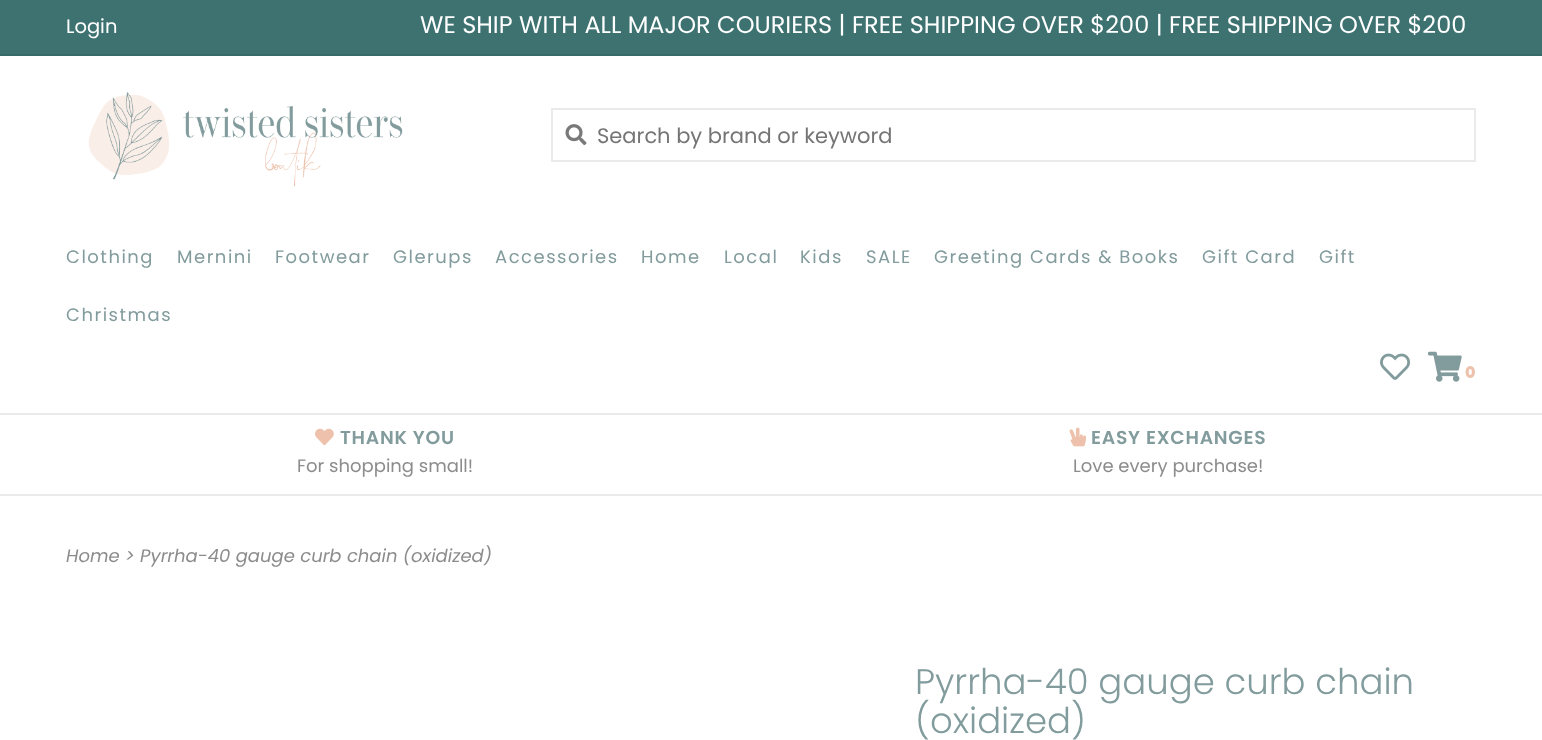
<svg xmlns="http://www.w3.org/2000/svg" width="1542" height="740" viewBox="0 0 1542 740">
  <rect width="100%" height="100%" fill="rgb(255,255,255)"/>
  <rect x="0" y="0" width="1542" height="54" fill="rgb(61,114,113)"/>
  <rect x="0" y="54" width="1542" height="2" fill="rgb(56,106,105)"/>
  <text x="66" y="33" font-family="Poppins" font-size="19.5" fill="rgb(255,255,255)">Login</text>
  <text x="420" y="33" font-family="Poppins" font-size="24" fill="rgb(255,255,255)">WE SHIP WITH ALL MAJOR COURIERS | FREE SHIPPING OVER $200 | FREE SHIPPING OVER $200</text>
  <image x="88" y="92" width="315" height="95" href="pic1.png"/>
  <rect x="552" y="109" width="923" height="52" fill="none" stroke="rgb(234,234,234)" stroke-width="2"/>
  <image x="565" y="124" width="22" height="22" href="pic2.png"/>
  <text x="597" y="143" font-family="Poppins" font-size="21" fill="rgb(117,117,117)">Search by brand or keyword</text>
  <g font-family="Poppins" font-size="18" letter-spacing="1.5" fill="rgb(130,155,156)">
    <text x="66" y="263">Clothing</text>
    <text x="177" y="263">Mernini</text>
    <text x="275" y="263">Footwear</text>
    <text x="393" y="263">Glerups</text>
    <text x="495" y="263">Accessories</text>
    <text x="641" y="263">Home</text>
    <text x="724" y="263">Local</text>
    <text x="800" y="263">Kids</text>
    <text x="866" y="263">SALE</text>
    <text x="934" y="263">Greeting Cards &amp; Books</text>
    <text x="1202" y="263">Gift Card</text>
    <text x="1319" y="263">Gift</text>
    <text x="66" y="321">Christmas</text>
  </g>
  <image x="1380" y="353" width="31" height="27" href="pic3.png"/>
  <image x="1428" y="351" width="34" height="31" href="pic4.png"/>
  <text x="1465" y="378" font-family="Poppins" font-size="16" font-weight="800" fill="rgb(237,193,171)">0</text>
  <rect x="0" y="413" width="1542" height="2" fill="rgb(234,234,234)"/>
  <rect x="0" y="494" width="1542" height="2" fill="rgb(234,234,234)"/>
  <image x="315" y="428" width="19" height="18" href="pic5.png"/>
  <text x="340" y="444" font-family="Poppins" font-size="18.75" font-weight="600" letter-spacing="0.75" fill="rgb(130,155,156)">THANK YOU</text>
  <text x="297" y="472" font-family="Poppins" font-size="18" fill="rgb(140,140,140)">For shopping small!</text>
  <image x="1069" y="427" width="17" height="20" href="pic6.png"/>
  <text x="1091" y="444" font-family="Poppins" font-size="18.75" font-weight="600" letter-spacing="0.75" fill="rgb(130,155,156)">EASY EXCHANGES</text>
  <text x="1073" y="472" font-family="Poppins" font-size="18" fill="rgb(140,140,140)">Love every purchase!</text>
  <text x="66" y="562" font-family="Poppins" font-size="18" font-style="italic" fill="rgb(140,140,140)">Home &gt; Pyrrha-40 gauge curb chain (oxidized)</text>
  <g font-family="Poppins" font-size="35.5" font-weight="300" fill="rgb(130,155,156)">
    <text>
      <tspan x="915" y="694">Pyrrha-40 gauge curb chain</tspan>
      <tspan x="915" y="733">(oxidized)</tspan>
    </text>
  </g>
</svg>
